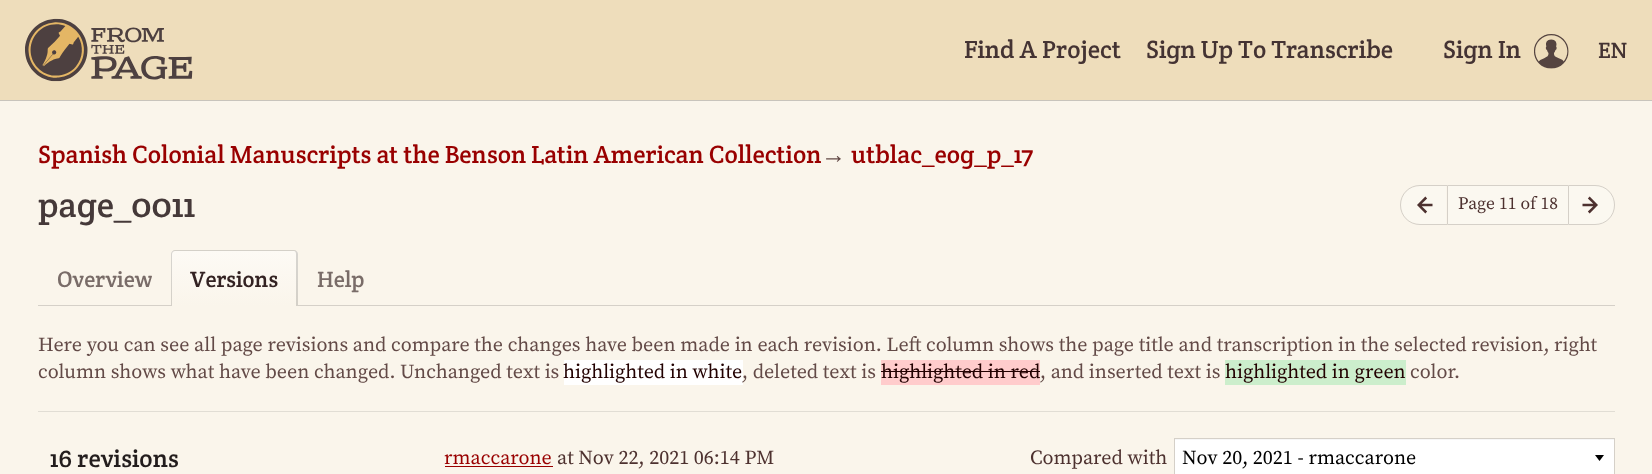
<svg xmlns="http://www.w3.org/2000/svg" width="1652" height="474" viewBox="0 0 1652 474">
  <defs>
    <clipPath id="clip1"><path d="M175 250H294C296 250 298 252 298 254V306H171V254C171 252 173 250 175 250Z"/></clipPath>
    <linearGradient id="g1" gradientUnits="userSpaceOnUse" x1="234" y1="251" x2="234" y2="306"><stop offset="0" stop-color="rgb(253,250,245)"/><stop offset="1" stop-color="rgb(250,245,235)"/></linearGradient>
  </defs>
  <rect width="100%" height="100%" fill="rgb(250,245,235)"/>
  <path d="M0 100V101H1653V1H1652V100Z" fill="rgb(200,196,188)"/>
  <rect x="0" y="0" width="1652" height="100" fill="rgb(238,221,187)"/>
  <image x="25" y="18" width="168" height="64" href="pic1.png"/>
  <g font-family="Crete Round" font-size="25" fill="rgb(68,51,51)">
    <text x="964" y="58">Find A Project</text>
    <text x="1146" y="58">Sign Up To Transcribe</text>
    <text x="1443" y="58">Sign In</text>
  </g>
  <image x="1534" y="34" width="35" height="35" href="pic2.png"/>
  <text x="1598" y="58" font-family="Crete Round" font-size="22.5" fill="rgb(68,51,51)">EN</text>
  <text x="38" y="163" font-family="Crete Round" font-size="25" fill="rgb(153,0,0)">Spanish Colonial Manuscripts at the Benson Latin American Collection</text>
  <text x="821" y="163" font-family="Liberation Serif" font-size="25" fill="rgb(99,74,71)">→</text>
  <text x="851" y="163" font-family="Crete Round" font-size="25" fill="rgb(153,0,0)">utblac_eog_p_17</text>
  <text x="38" y="217" font-family="Crete Round" font-size="35" fill="rgb(69,57,57)">page_0011</text>
  <path d="M1420 186H1446V224H1420C1409.5 224 1401 215.5 1401 205C1401 194.5 1409.5 186 1420 186Z" fill="rgb(251,248,240)"/>
  <path d="M1420 185.5H1447.5V224.5H1420C1409 224.5 1400.5 216 1400.5 205C1400.5 194 1409 185.5 1420 185.5Z" fill="none" stroke="rgb(213,208,200)"/>
  <image x="1417" y="196" width="16" height="18" href="pic3.png"/>
  <rect x="1448" y="186" width="120" height="38" fill="rgb(251,248,240)"/>
  <rect x="1448" y="185" width="120" height="1" fill="rgb(213,208,200)"/>
  <rect x="1448" y="224" width="120" height="1" fill="rgb(213,208,200)"/>
  <text x="1458" y="209" font-family="Source Serif Pro" font-size="17.5" fill="rgb(77,49,47)">Page 11 of 18</text>
  <path d="M1568.5 185.5H1595C1606 185.5 1614.5 194 1614.5 205C1614.5 216 1606 224.5 1595 224.5H1568.5Z" fill="rgb(251,248,240)" stroke="rgb(213,208,200)"/>
  <image x="1582" y="196" width="16" height="18" href="pic4.png"/>
  <rect x="38" y="305" width="1577" height="1" fill="rgb(213,208,200)"/>
  <text x="57" y="287" font-family="Crete Round" font-size="22.5" fill="rgb(121,108,104)">Overview</text>
  <g clip-path="url(#clip1)">
    <rect x="171" y="251" width="127" height="55" fill="url(#g1)"/>
  </g>
  <path d="M175 250H294C296 250 298 252 298 254V306H171V254C171 252 173 250 175 250ZM175 251H294C295 251 296 252 296 254V306H172V254C172 252 174 251 175 251Z" fill="rgba(0,0,0,0.15)" fill-rule="evenodd"/>
  <text x="190" y="287" font-family="Crete Round" font-size="22.5" fill="rgb(51,34,34)">Versions</text>
  <text x="317" y="287" font-family="Crete Round" font-size="22.5" fill="rgb(121,108,104)">Help</text>
  <rect x="38" y="411" width="1577" height="1" fill="rgb(225,221,212)"/>
  <g font-family="Source Serif Pro" font-size="20" fill="rgb(99,74,71)">
    <text>
      <tspan x="38" y="351">Here you can see all page revisions and compare the changes have been made in each revision. Left column shows the page title and transcription in the selected revision, right</tspan>
      <tspan x="38" y="378">column shows what have been changed. Unchanged text is</tspan>
    </text>
  </g>
  <rect x="564" y="360" width="179" height="25" fill="rgb(255,255,255)"/>
  <text x="563" y="378" font-family="Source Serif Pro" font-size="20" fill="rgb(34,0,0)">highlighted in white</text>
  <text x="742" y="378" font-family="Source Serif Pro" font-size="20" fill="rgb(99,74,71)">, deleted text is</text>
  <rect x="881" y="360" width="159" height="25" fill="rgb(255,204,204)"/>
  <text x="881" y="378" font-family="Source Serif Pro" font-size="20" fill="rgb(34,0,0)">highlighted in red</text>
  <rect x="881" y="371" width="159" height="1" fill="rgb(34,0,0)"/>
  <text x="1040" y="378" font-family="Source Serif Pro" font-size="20" fill="rgb(99,74,71)">, and inserted text is</text>
  <rect x="1225" y="360" width="181" height="25" fill="rgb(204,238,204)"/>
  <text x="1225" y="378" font-family="Source Serif Pro" font-size="20" fill="rgb(34,0,0)">highlighted in green</text>
  <text x="1410" y="378" font-family="Source Serif Pro" font-size="20" fill="rgb(99,74,71)">color.</text>
  <text x="50" y="467" font-family="Crete Round" font-size="25" fill="rgb(35,29,29)">16 revisions</text>
  <text x="444" y="464" font-family="Source Serif Pro" font-size="20" fill="rgb(153,0,0)">rmaccarone</text>
  <rect x="445" y="466" width="108" height="1" fill="rgb(153,0,0)"/>
  <g font-family="Source Serif Pro" font-size="20" fill="rgb(77,49,47)">
    <text x="557" y="464">at Nov 22, 2021 06:14 PM</text>
    <text x="1030" y="464">Compared with</text>
  </g>
  <rect x="1175" y="440" width="439" height="34" fill="rgb(255,255,255)"/>
  <path d="M1595 455H1604L1599.5 461Z" fill="rgb(0,0,0)"/>
  <rect x="1175" y="439" width="439" height="1" fill="rgb(247,247,247)"/>
  <rect x="1174.5" y="438.5" width="440" height="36" fill="none" stroke="rgb(213,208,200)"/>
  <text x="1182" y="464" font-family="Source Serif Pro" font-size="20" fill="rgb(0,0,0)">Nov 20, 2021 - rmaccarone</text>
</svg>
